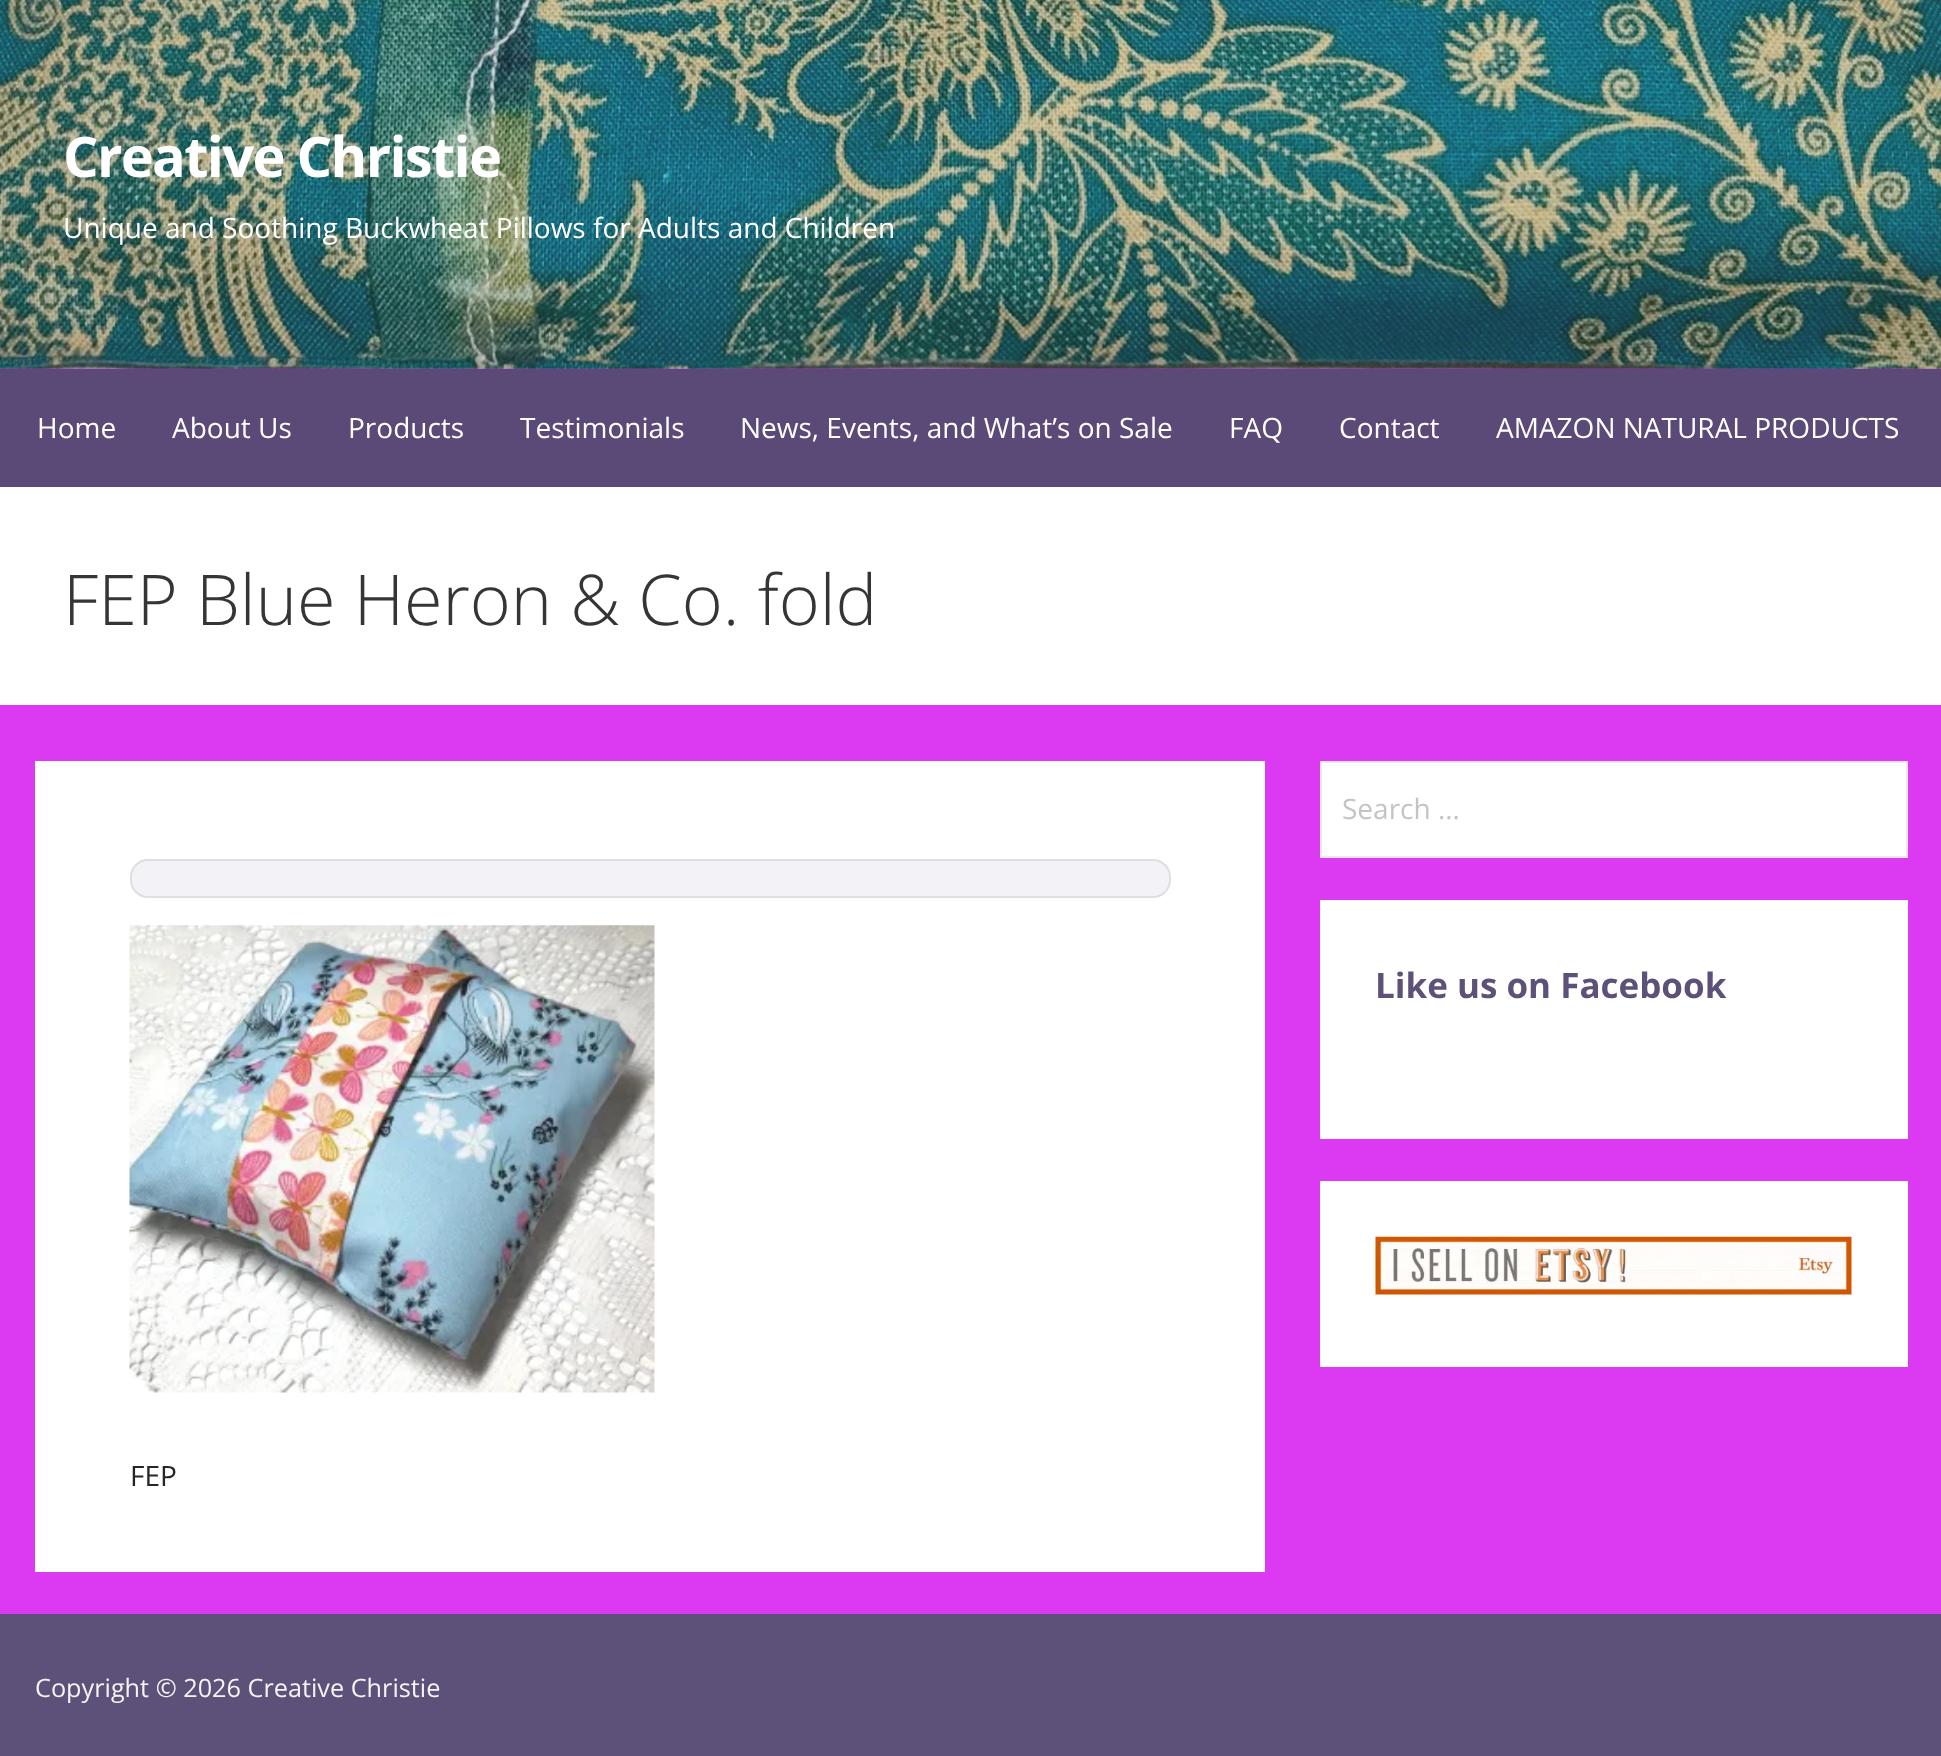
<svg xmlns="http://www.w3.org/2000/svg" width="1941" height="1756" viewBox="0 0 1941 1756">
  <rect width="100%" height="100%" fill="rgb(220,58,242)"/>
  <image x="0" y="0" width="1941" height="369" href="pic1.png"/>
  <text x="63" y="177" font-family="Open Sans" font-size="56" font-weight="bold" letter-spacing="-1.7" fill="rgb(255,255,255)">Creative Christie</text>
  <text x="63" y="238" font-family="Open Sans" font-size="28" fill="rgb(255,255,255)">Unique and Soothing Buckwheat Pillows for Adults and Children</text>
  <rect x="0" y="369" width="1941" height="118" fill="rgb(91,73,119)"/>
  <g font-family="Open Sans" font-size="28" fill="rgb(255,255,255)">
    <text x="37" y="438">Home</text>
    <text x="172" y="438">About Us</text>
    <text x="348" y="438">Products</text>
    <text x="520" y="438">Testimonials</text>
    <text x="740" y="438">News, Events, and What’s on Sale</text>
    <text x="1229" y="438">FAQ</text>
    <text x="1339" y="438">Contact</text>
    <text x="1496" y="438">AMAZON NATURAL PRODUCTS</text>
  </g>
  <rect x="0" y="487" width="1941" height="218" fill="rgb(255,255,255)"/>
  <text x="63" y="625" font-family="Open Sans" font-size="70" font-weight="300" fill="rgb(53,53,53)">FEP Blue Heron &amp; Co. fold</text>
  <rect x="1321" y="762" width="586" height="95" fill="rgb(255,255,255)" stroke="rgb(233,233,233)" stroke-width="2"/>
  <text x="1342" y="819" font-family="Open Sans" font-size="28" fill="rgb(196,196,196)">Search …</text>
  <rect x="1320" y="900" width="588" height="239" fill="rgb(255,255,255)"/>
  <text x="1375" y="998" font-family="Open Sans" font-size="35" font-weight="bold" fill="rgb(93,81,121)">Like us on Facebook</text>
  <rect x="1320" y="1181" width="588" height="186" fill="rgb(255,255,255)"/>
  <image x="1375" y="1236" width="477" height="59" href="pic2.png"/>
  <rect x="35" y="761" width="1230" height="811" fill="rgb(255,255,255)"/>
  <rect x="131" y="860" width="1039" height="37" rx="17" fill="rgb(243,243,247)" stroke="rgb(222,222,227)" stroke-width="2"/>
  <image x="129" y="925" width="526" height="468" href="pic3.png"/>
  <text x="130" y="1486" font-family="Open Sans" font-size="28" fill="rgb(37,37,37)">FEP</text>
  <rect x="0" y="1614" width="1941" height="142" fill="rgb(93,81,121)"/>
  <text x="35" y="1697" font-family="Open Sans" font-size="25.25" fill="rgb(244,244,244)">Copyright © 2026 Creative Christie</text>
</svg>
